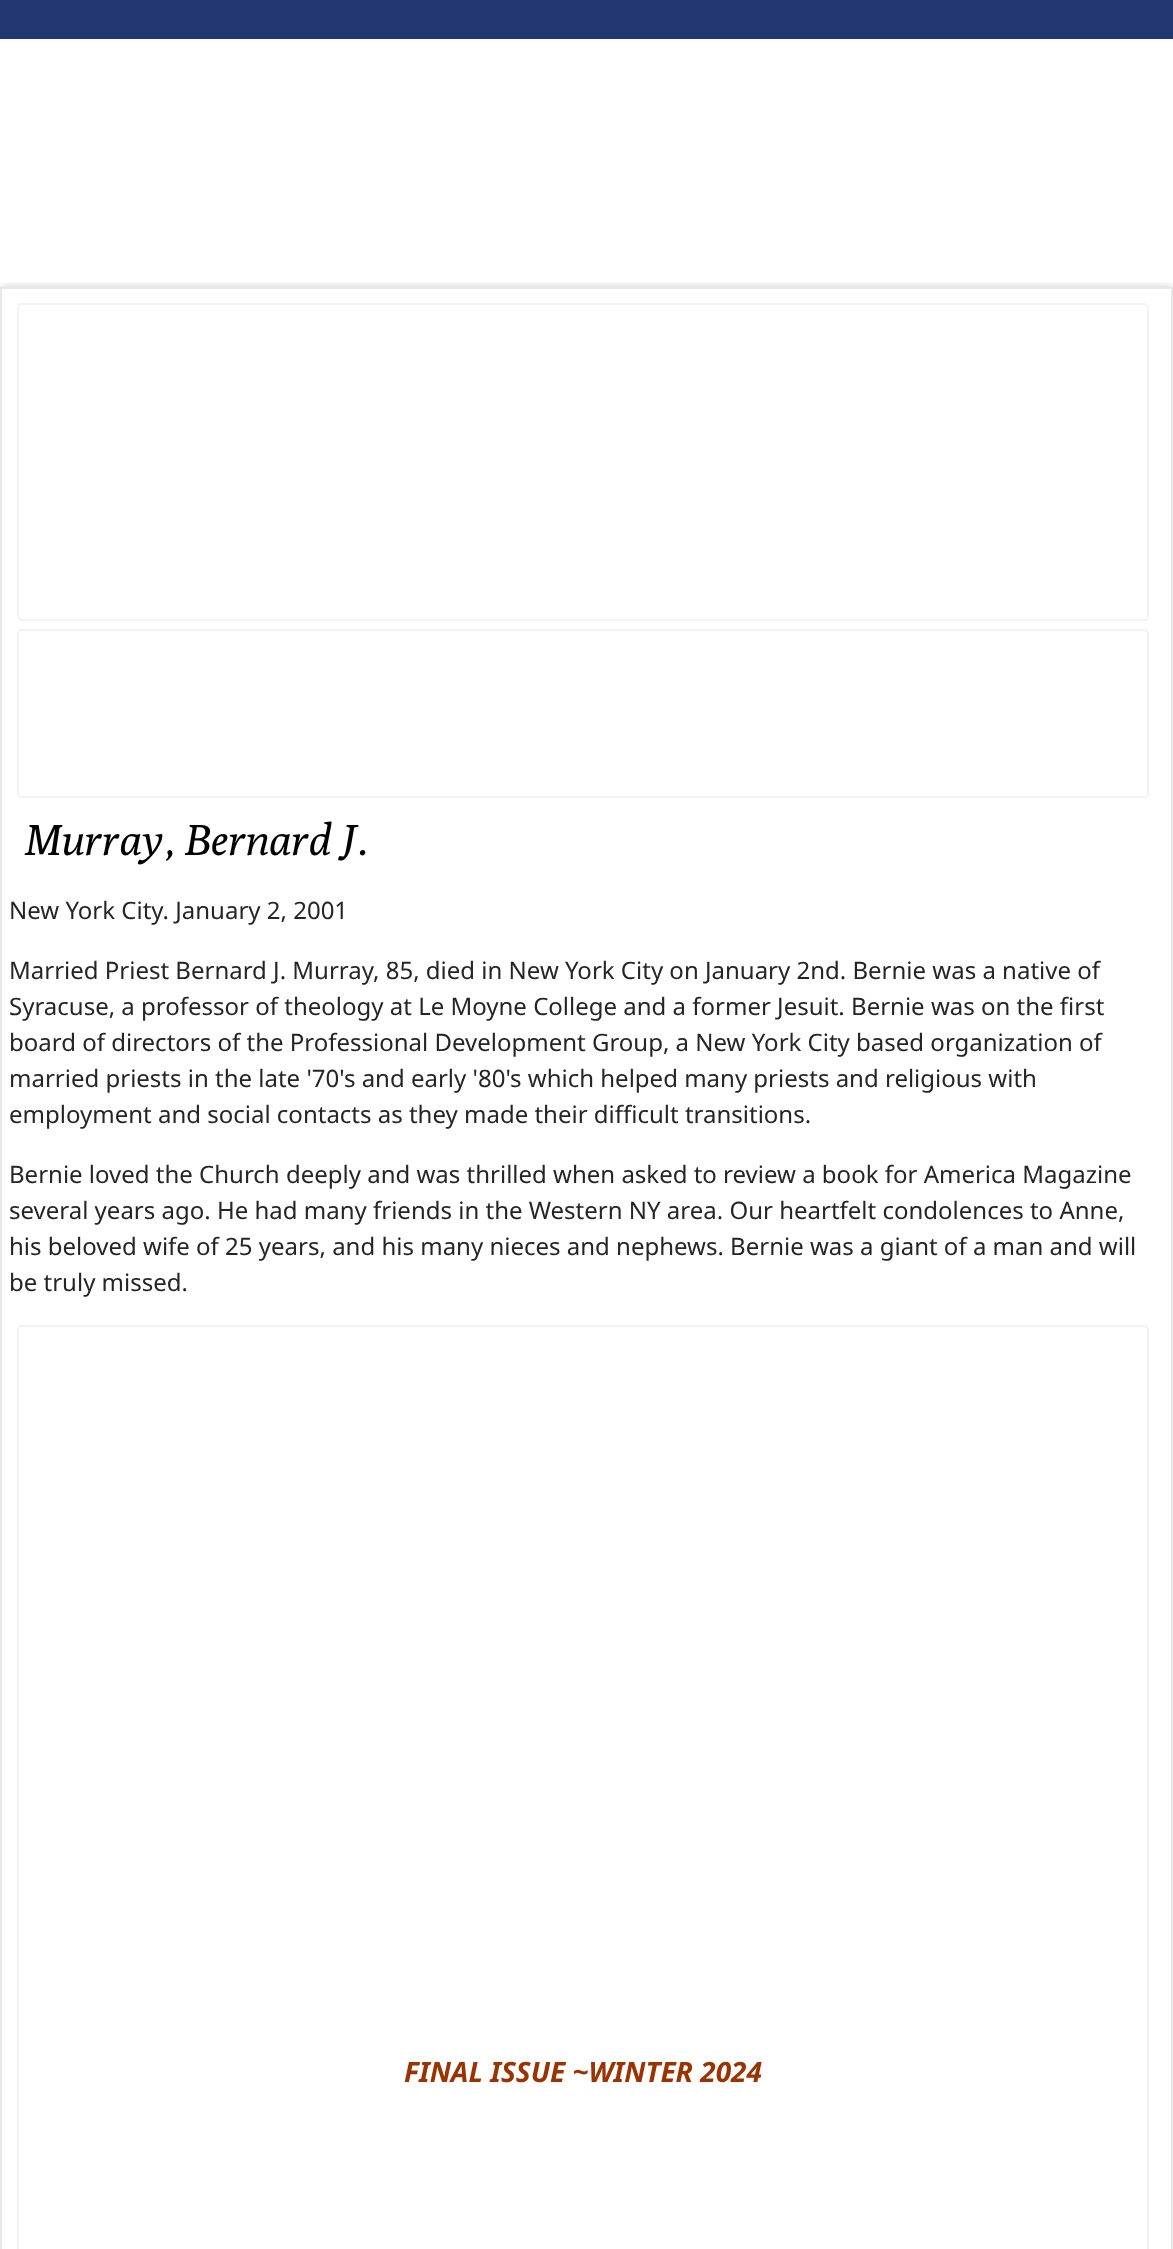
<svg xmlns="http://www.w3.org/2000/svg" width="1173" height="2249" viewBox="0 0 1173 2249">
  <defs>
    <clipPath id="clip1"><rect x="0" y="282" width="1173" height="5"/></clipPath>
  </defs>
  <rect width="100%" height="100%" fill="rgb(255,255,255)"/>
  <rect x="0" y="0" width="1173" height="39" fill="rgb(34,55,114)"/>
  <g clip-path="url(#clip1)">
    <rect x="0" y="287" width="1173" height="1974" fill="rgba(0,0,0,0.2)" filter="blur(4px)"/>
  </g>
  <rect x="1" y="288" width="1171" height="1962" fill="none" stroke="rgb(232,232,232)" stroke-width="2"/>
  <rect x="18" y="304" width="1130" height="316" rx="4" fill="none" stroke="rgb(243,243,243)" stroke-width="2"/>
  <rect x="18" y="630" width="1130" height="167" rx="4" fill="none" stroke="rgb(243,243,243)" stroke-width="2"/>
  <text x="24" y="855" font-family="Poly" font-size="43.25" font-style="italic" fill="rgb(0,0,0)">Murray, Bernard J.</text>
  <g font-family="Noto Sans" font-size="24" fill="rgb(37,37,37)">
    <text x="9" y="919">New York City. January 2, 2001</text>
    <text>
      <tspan x="9" y="979">Married Priest Bernard J. Murray, 85, died in New York City on January 2nd. Bernie was a native of</tspan>
      <tspan x="9" y="1015">Syracuse, a professor of theology at Le Moyne College and a former Jesuit. Bernie was on the first</tspan>
      <tspan x="9" y="1051">board of directors of the Professional Development Group, a New York City based organization of</tspan>
      <tspan x="9" y="1087">married priests in the late '70's and early '80's which helped many priests and religious with</tspan>
      <tspan x="9" y="1123">employment and social contacts as they made their difficult transitions.</tspan>
    </text>
    <text>
      <tspan x="9" y="1183">Bernie loved the Church deeply and was thrilled when asked to review a book for America Magazine</tspan>
      <tspan x="9" y="1219">several years ago. He had many friends in the Western NY area. Our heartfelt condolences to Anne,</tspan>
      <tspan x="9" y="1255">his beloved wife of 25 years, and his many nieces and nephews. Bernie was a giant of a man and will</tspan>
      <tspan x="9" y="1291">be truly missed.</tspan>
    </text>
  </g>
  <rect x="18" y="1326" width="1130" height="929" rx="4" fill="none" stroke="rgb(243,243,243)" stroke-width="2"/>
  <text x="404" y="2082" font-family="Noto Sans" font-size="28" font-weight="bold" font-style="italic" fill="rgb(153,51,0)">FINAL ISSUE ~WINTER 2024</text>
</svg>
